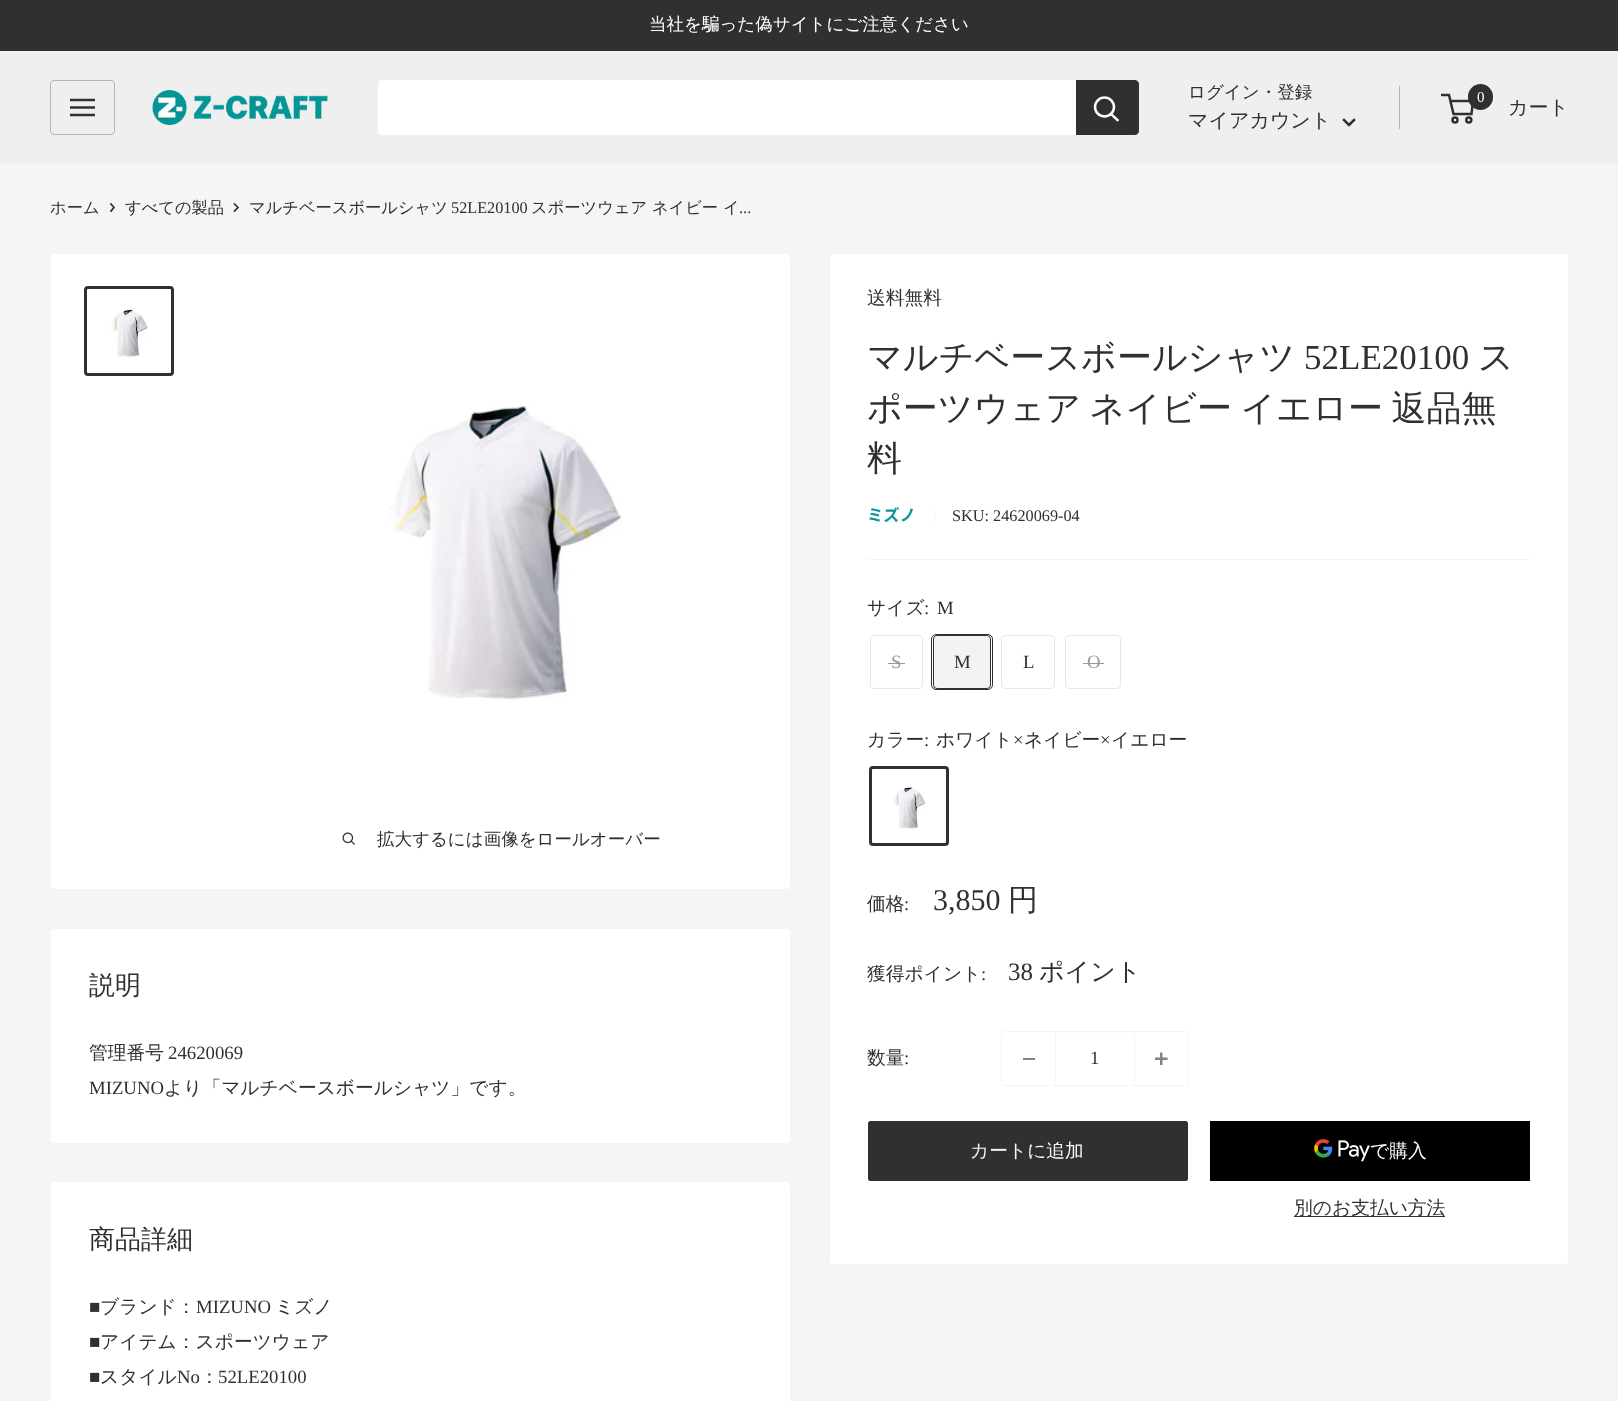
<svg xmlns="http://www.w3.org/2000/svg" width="1618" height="1401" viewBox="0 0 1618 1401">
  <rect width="100%" height="100%" fill="rgb(245,245,245)"/>
  <rect x="0" y="0" width="1618" height="51" fill="rgb(48,48,48)"/>
  <text x="649" y="30" font-family="WenQuanYi Zen Hei" font-size="17.5" font-weight="500" fill="rgb(255,255,255)">当社を騙った偽サイトにご注意ください</text>
  <rect x="0" y="51" width="1618" height="113" fill="rgb(239,239,239)"/>
  <rect x="50.5" y="80.5" width="64" height="54" rx="3.5" fill="none" stroke="rgb(182,182,182)"/>
  <image x="70" y="98" width="25" height="19" href="pic1.png"/>
  <image x="152" y="90" width="176" height="35" href="pic2.png"/>
  <rect x="378" y="80" width="761" height="55" rx="4" fill="rgb(255,255,255)"/>
  <path d="M1076 80H1135C1137 80 1139 82 1139 84V131C1139 133 1137 135 1135 135H1076Z" fill="rgb(48,48,48)"/>
  <path d="M1117.5 120L1111 114" fill="none" stroke="rgb(255,255,255)" stroke-width="2.5" stroke-linecap="square"/>
  <circle cx="1104.5" cy="107" r="9.5" fill="none" stroke="rgb(255,255,255)" stroke-width="2.5"/>
  <text x="1188" y="98" font-family="WenQuanYi Zen Hei" font-size="17.5" font-weight="500" fill="rgb(48,48,48)">ログイン・登録</text>
  <rect x="1399" y="86" width="1" height="43" fill="rgb(182,182,182)"/>
  <text x="1188" y="127" font-family="WenQuanYi Zen Hei" font-size="20" font-weight="500" fill="rgb(48,48,48)">マイアカウント</text>
  <path d="M1354 120L1349 125L1344 120" fill="none" stroke="rgb(48,48,48)" stroke-width="2.5" stroke-linecap="square"/>
  <circle cx="1455" cy="120" r="2.5" fill="none" stroke="rgb(48,48,48)" stroke-width="2.5"/>
  <circle cx="1468.8" cy="120" r="2.5" fill="none" stroke="rgb(48,48,48)" stroke-width="2.5"/>
  <path d="M1450.5 101H1473L1471.5 114H1453.5L1449 95H1441" fill="none" stroke="rgb(48,48,48)" stroke-width="2.5"/>
  <rect x="1468" y="84" width="25" height="26" rx="12.5" fill="rgb(48,48,48)"/>
  <text x="1477" y="102" font-family="Liberation Serif" font-size="15" fill="rgb(255,255,255)">0</text>
  <text x="1508" y="114" font-family="WenQuanYi Zen Hei" font-size="20" font-weight="500" fill="rgb(48,48,48)">カート</text>
  <text x="50" y="213" font-family="WenQuanYi Zen Hei" font-size="16.25" font-weight="500" fill="rgb(48,48,48)">ホーム</text>
  <path d="M111 204L114 207.5L111 211" fill="none" stroke="rgb(48,48,48)" stroke-width="1.7" stroke-linecap="square"/>
  <text x="125" y="213" font-family="WenQuanYi Zen Hei" font-size="16.25" font-weight="500" fill="rgb(48,48,48)">すべての製品</text>
  <path d="M234.5 204L238 207.5L234.5 211" fill="none" stroke="rgb(48,48,48)" stroke-width="1.7" stroke-linecap="square"/>
  <text x="249" y="213" font-family="WenQuanYi Zen Hei" font-size="16.25" font-weight="500" fill="rgb(48,48,48)">マルチベースボールシャツ</text>
  <text x="451" y="213" font-family="Liberation Serif" font-size="16.25" fill="rgb(48,48,48)">52LE20100</text>
  <text x="531" y="213" font-family="WenQuanYi Zen Hei" font-size="16.25" font-weight="500" fill="rgb(48,48,48)">スポーツウェア ネイビー イ</text>
  <text x="739" y="213" font-family="Liberation Serif" font-size="16.25" fill="rgb(48,48,48)">...</text>
  <rect x="50.5" y="253.5" width="740" height="636" rx="3.5" fill="rgb(255,255,255)" stroke="rgb(245,245,245)"/>
  <rect x="85.5" y="287.5" width="87" height="87" rx="2.5" fill="none" stroke="rgb(48,48,48)" stroke-width="3"/>
  <image x="111" y="309" width="37" height="49" href="pic3.png"/>
  <image x="388" y="406" width="234" height="296" href="pic4.png"/>
  <image x="342" y="832" width="13" height="13" href="pic5.png"/>
  <text x="377" y="845" font-family="WenQuanYi Zen Hei" font-size="17.5" font-weight="500" fill="rgb(48,48,48)">拡大するには画像をロールオーバー</text>
  <rect x="829.5" y="253.5" width="739" height="1011" rx="3.5" fill="rgb(255,255,255)" stroke="rgb(245,245,245)"/>
  <text x="867" y="304" font-family="WenQuanYi Zen Hei" font-size="18.75" font-weight="500" fill="rgb(48,48,48)">送料無料</text>
  <text x="867" y="369" font-family="WenQuanYi Zen Hei" font-size="35" font-weight="500" fill="rgb(48,48,48)">マルチベースボールシャツ</text>
  <text x="1304" y="369" font-family="Liberation Serif" font-size="35" fill="rgb(48,48,48)">52LE20100</text>
  <g font-family="WenQuanYi Zen Hei" font-size="35" font-weight="500" fill="rgb(48,48,48)">
    <text x="1478" y="369">ス</text>
    <text>
      <tspan x="867" y="420" word-spacing="-2">ポーツウェア ネイビー イエロー 返品無</tspan>
      <tspan x="867" y="470">料</tspan>
    </text>
  </g>
  <text x="867" y="521" font-family="Noto Sans JP" font-size="16.25" font-weight="bold" fill="rgb(12,150,152)">ミズノ</text>
  <rect x="934" y="508" width="1" height="16" fill="rgb(245,245,245)"/>
  <text x="952" y="521" font-family="Liberation Serif" font-size="16.25" fill="rgb(48,48,48)">SKU: 24620069-04</text>
  <rect x="868" y="559" width="662" height="1" fill="rgb(245,245,245)"/>
  <text x="867" y="614" font-family="WenQuanYi Zen Hei" font-size="18.75" font-weight="500" fill="rgb(48,48,48)">サイズ</text>
  <g font-family="Liberation Serif" font-size="18.75" fill="rgb(48,48,48)">
    <text x="924" y="614">:</text>
    <text x="937" y="614">M</text>
  </g>
  <rect x="870.5" y="635.5" width="52" height="53" rx="3.5" fill="none" stroke="rgb(232,232,232)"/>
  <text x="891" y="668" font-family="Liberation Serif" font-size="18.75" fill="rgb(152,152,152)">S</text>
  <rect x="888" y="663" width="17" height="1" fill="rgb(152,152,152)"/>
  <rect x="931.5" y="634.5" width="61" height="55" rx="4.5" fill="none" stroke="rgb(48,48,48)"/>
  <rect x="933" y="635" width="58" height="54" fill="rgba(48,48,48,0.06)"/>
  <rect x="933.5" y="635.5" width="57" height="53" rx="3.5" fill="none" stroke="rgb(48,48,48)"/>
  <text x="954" y="668" font-family="Liberation Serif" font-size="18.75" fill="rgb(48,48,48)">M</text>
  <rect x="1001.5" y="635.5" width="53" height="53" rx="3.5" fill="none" stroke="rgb(232,232,232)"/>
  <text x="1023" y="668" font-family="Liberation Serif" font-size="18.75" fill="rgb(48,48,48)">L</text>
  <rect x="1065.5" y="635.5" width="55" height="53" rx="3.5" fill="none" stroke="rgb(232,232,232)"/>
  <text x="1087" y="668" font-family="Liberation Serif" font-size="18.75" fill="rgb(152,152,152)">O</text>
  <rect x="1083" y="663" width="21" height="1" fill="rgb(152,152,152)"/>
  <text x="867" y="746" font-family="WenQuanYi Zen Hei" font-size="18.75" font-weight="500" fill="rgb(48,48,48)">カラー</text>
  <text x="924" y="746" font-family="Liberation Serif" font-size="18.75" fill="rgb(48,48,48)">:</text>
  <text x="936" y="746" font-family="WenQuanYi Zen Hei" font-size="18.75" font-weight="500" fill="rgb(48,48,48)">ホワイト</text>
  <text x="1013" y="746" font-family="Liberation Serif" font-size="18.75" fill="rgb(48,48,48)">×</text>
  <text x="1024" y="746" font-family="WenQuanYi Zen Hei" font-size="18.75" font-weight="500" fill="rgb(48,48,48)">ネイビー</text>
  <text x="1100" y="746" font-family="Liberation Serif" font-size="18.75" fill="rgb(48,48,48)">×</text>
  <text x="1111" y="746" font-family="WenQuanYi Zen Hei" font-size="18.75" font-weight="500" fill="rgb(48,48,48)">イエロー</text>
  <rect x="870.5" y="767.5" width="77" height="77" rx="2.5" fill="none" stroke="rgb(48,48,48)" stroke-width="3"/>
  <image x="893" y="787" width="33" height="43" href="pic6.png"/>
  <text x="867" y="910" font-family="WenQuanYi Zen Hei" font-size="18.75" font-weight="500" fill="rgb(48,48,48)">価格</text>
  <text x="904" y="910" font-family="Liberation Serif" font-size="18.75" fill="rgb(48,48,48)">:</text>
  <text x="933" y="910" font-family="Liberation Serif" font-size="30" fill="rgb(48,48,48)">3,850</text>
  <text x="1008" y="910" font-family="WenQuanYi Zen Hei" font-size="30" font-weight="500" fill="rgb(48,48,48)">円</text>
  <text x="867" y="980" font-family="WenQuanYi Zen Hei" font-size="18.75" font-weight="500" fill="rgb(48,48,48)">獲得ポイント</text>
  <text x="981" y="980" font-family="Liberation Serif" font-size="18.75" fill="rgb(48,48,48)">:</text>
  <text x="1008" y="980" font-family="Liberation Serif" font-size="25" fill="rgb(48,48,48)">38</text>
  <text x="1039" y="980" font-family="WenQuanYi Zen Hei" font-size="25" font-weight="500" fill="rgb(48,48,48)">ポイント</text>
  <text x="867" y="1064" font-family="WenQuanYi Zen Hei" font-size="18.75" font-weight="500" fill="rgb(48,48,48)">数量</text>
  <text x="904" y="1064" font-family="Liberation Serif" font-size="18.75" fill="rgb(48,48,48)">:</text>
  <rect x="1001.5" y="1031.5" width="187" height="54" rx="3.5" fill="none" stroke="rgb(245,245,245)"/>
  <rect x="1023" y="1058" width="12" height="2" fill="rgb(131,131,131)"/>
  <rect x="1056" y="1033" width="78" height="1" fill="rgb(251,251,251)"/>
  <rect x="1134" y="1033" width="1" height="52" fill="rgb(245,245,245)"/>
  <rect x="1055" y="1033" width="1" height="52" fill="rgb(245,245,245)"/>
  <text x="1090" y="1064" font-family="Liberation Serif" font-size="18.75" fill="rgb(48,48,48)">1</text>
  <image x="1155" y="1052" width="13" height="13" href="pic7.png"/>
  <rect x="868" y="1121" width="320" height="60" rx="2.5" fill="rgb(48,48,48)"/>
  <text x="970" y="1157" font-family="WenQuanYi Zen Hei" font-size="18.75" font-weight="500" fill="rgb(245,245,245)">カートに追加</text>
  <rect x="1210" y="1121" width="320" height="60" fill="rgb(0,0,0)"/>
  <image x="1314" y="1139" width="56" height="23" href="pic8.png"/>
  <text x="1370" y="1157" font-family="WenQuanYi Zen Hei" font-size="18.75" font-weight="500" fill="rgb(255,255,255)">で購入</text>
  <rect x="1294" y="1216" width="151" height="1" fill="rgb(48,48,48)"/>
  <text x="1294" y="1214" font-family="WenQuanYi Zen Hei" font-size="18.75" font-weight="500" fill="rgb(48,48,48)">別のお支払い方法</text>
  <rect x="50.5" y="928.5" width="740" height="215" rx="3.5" fill="rgb(255,255,255)" stroke="rgb(245,245,245)"/>
  <text x="89" y="994" font-family="WenQuanYi Zen Hei" font-size="26" font-weight="500" fill="rgb(48,48,48)">説明</text>
  <text x="89" y="1059" font-family="WenQuanYi Zen Hei" font-size="18.75" font-weight="500" fill="rgb(48,48,48)">管理番号</text>
  <g font-family="Liberation Serif" font-size="18.75" fill="rgb(48,48,48)">
    <text x="168" y="1059">24620069</text>
    <text x="89" y="1094">MIZUNO</text>
  </g>
  <text x="164" y="1094" font-family="WenQuanYi Zen Hei" font-size="18.75" font-weight="500" fill="rgb(48,48,48)">より「マルチベースボールシャツ」です。</text>
  <rect x="50.5" y="1181.5" width="740" height="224" rx="3.5" fill="rgb(255,255,255)" stroke="rgb(245,245,245)"/>
  <text x="89" y="1248" font-family="WenQuanYi Zen Hei" font-size="26" font-weight="500" fill="rgb(48,48,48)">商品詳細</text>
  <text x="89" y="1313" font-family="Liberation Serif" font-size="18.75" fill="rgb(48,48,48)">■</text>
  <text x="100" y="1313" font-family="WenQuanYi Zen Hei" font-size="18.75" font-weight="500" fill="rgb(48,48,48)">ブランド：</text>
  <text x="196" y="1313" font-family="Liberation Serif" font-size="18.75" fill="rgb(48,48,48)">MIZUNO</text>
  <text x="275" y="1313" font-family="WenQuanYi Zen Hei" font-size="18.75" font-weight="500" fill="rgb(48,48,48)">ミズノ</text>
  <text x="89" y="1348" font-family="Liberation Serif" font-size="18.75" fill="rgb(48,48,48)">■</text>
  <text x="100" y="1348" font-family="WenQuanYi Zen Hei" font-size="18.75" font-weight="500" fill="rgb(48,48,48)">アイテム：スポーツウェア</text>
  <text x="89" y="1383" font-family="Liberation Serif" font-size="18.75" fill="rgb(48,48,48)">■</text>
  <text x="100" y="1383" font-family="WenQuanYi Zen Hei" font-size="18.75" font-weight="500" fill="rgb(48,48,48)">スタイル</text>
  <text x="177" y="1383" font-family="Liberation Serif" font-size="18.75" fill="rgb(48,48,48)">No</text>
  <text x="200" y="1383" font-family="WenQuanYi Zen Hei" font-size="18.75" font-weight="500" fill="rgb(48,48,48)">：</text>
  <text x="218" y="1383" font-family="Liberation Serif" font-size="18.75" fill="rgb(48,48,48)">52LE20100</text>
</svg>
